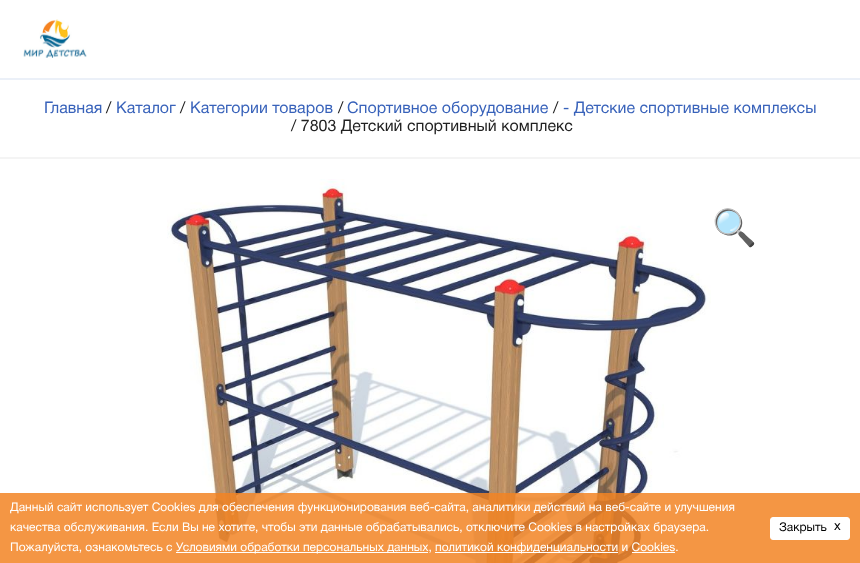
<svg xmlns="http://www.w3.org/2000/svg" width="860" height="563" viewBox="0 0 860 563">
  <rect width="100%" height="100%" fill="rgb(255,255,255)"/>
  <rect x="0" y="78" width="860" height="2" fill="rgb(235,240,248)"/>
  <image x="23" y="19" width="64" height="39" href="pic1.png"/>
  <rect x="0" y="157" width="860" height="2" fill="rgb(244,244,244)"/>
  <text x="44" y="113" font-family="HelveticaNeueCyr" font-size="16" fill="rgb(56,98,186)">Главная</text>
  <text x="106" y="113" font-family="HelveticaNeueCyr" font-size="16" fill="rgb(33,33,33)">/</text>
  <text x="116" y="113" font-family="HelveticaNeueCyr" font-size="16" fill="rgb(56,98,186)">Каталог</text>
  <text x="180" y="113" font-family="HelveticaNeueCyr" font-size="16" fill="rgb(33,33,33)">/</text>
  <text x="190" y="113" font-family="HelveticaNeueCyr" font-size="16" fill="rgb(56,98,186)">Категории товаров</text>
  <text x="338" y="113" font-family="HelveticaNeueCyr" font-size="16" fill="rgb(33,33,33)">/</text>
  <text x="347" y="113" font-family="HelveticaNeueCyr" font-size="16" fill="rgb(56,98,186)">Спортивное оборудование</text>
  <text x="553" y="113" font-family="HelveticaNeueCyr" font-size="16" fill="rgb(33,33,33)">/</text>
  <text x="563" y="113" font-family="HelveticaNeueCyr" font-size="16" fill="rgb(56,98,186)">- Детские спортивные комплексы</text>
  <text x="291" y="131" font-family="HelveticaNeueCyr" font-size="16" fill="rgb(33,33,33)">/ 7803 Детский спортивный комплекс</text>
  <image x="167" y="179" width="544" height="384" href="pic2.png"/>
  <text x="712" y="240" font-family="Noto Color Emoji" font-size="36" fill="rgb(56,98,186)">🔍</text>
  <rect x="0" y="493" width="860" height="70" fill="rgba(242,132,35,0.85)"/>
  <g font-family="HelveticaNeueCyr" font-size="12" fill="rgb(255,255,255)">
    <text>
      <tspan x="10" y="511">Данный сайт использует Cookies для обеспечения функционирования веб-сайта, аналитики действий на веб-сайте и улучшения</tspan>
      <tspan x="10" y="531">качества обслуживания. Если Вы не хотите, чтобы эти данные обрабатывались, отключите Cookies в настройках браузера.</tspan>
      <tspan x="10" y="551">Пожалуйста, ознакомьтесь с</tspan>
    </text>
  </g>
  <rect x="176" y="552" width="252" height="1" fill="rgb(255,255,255)"/>
  <text x="176" y="551" font-family="HelveticaNeueCyr" font-size="12" fill="rgb(255,255,255)">Условиями обработки персональных данных,</text>
  <rect x="435" y="552" width="183" height="1" fill="rgb(255,255,255)"/>
  <text x="435" y="551" font-family="HelveticaNeueCyr" font-size="12" fill="rgb(255,255,255)">политикой конфиденциальности и Cookies.</text>
  <rect x="632" y="552" width="43" height="1" fill="rgb(255,255,255)"/>
  <rect x="770.5" y="517.5" width="79" height="22" rx="2.5" fill="rgb(255,255,255)" stroke="rgb(255,255,255)"/>
  <text x="779" y="531" font-family="HelveticaNeueCyr" font-size="12" fill="rgb(0,0,0)">Закрыть</text>
  <text x="834" y="530" font-family="HelveticaNeueCyr" font-size="13" fill="rgb(0,0,0)">х</text>
</svg>
